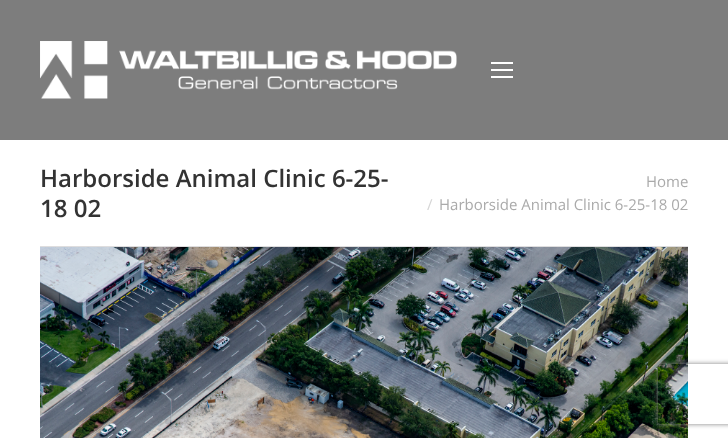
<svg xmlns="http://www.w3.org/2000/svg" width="728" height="438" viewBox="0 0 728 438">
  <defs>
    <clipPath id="clip1"><path d="M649 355H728V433H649ZM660 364H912C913 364 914 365 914 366V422C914 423 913 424 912 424H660C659 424 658 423 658 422V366C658 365 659 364 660 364Z" clip-rule="evenodd"/></clipPath>
  </defs>
  <rect width="100%" height="100%" fill="rgb(255,255,255)"/>
  <rect x="0" y="0" width="728" height="140" fill="rgb(125,125,125)"/>
  <image x="40" y="41" width="417" height="58" href="pic1.png"/>
  <rect x="491" y="69" width="22" height="2" fill="rgb(255,255,255)"/>
  <rect x="491" y="62" width="22" height="2" fill="rgb(255,255,255)"/>
  <rect x="491" y="76" width="22" height="2" fill="rgb(255,255,255)"/>
  <rect x="40" y="246" width="648" height="1" fill="rgb(222,221,222)"/>
  <g font-family="Open Sans" font-size="24" font-weight="600" fill="rgb(51,51,51)">
    <text>
      <tspan x="40" y="187">Harborside Animal Clinic 6-25-</tspan>
      <tspan x="40" y="217">18 02</tspan>
    </text>
  </g>
  <text x="646" y="187" font-family="Open Sans" font-size="15" fill="rgb(170,170,170)">Home</text>
  <text x="427" y="210" font-family="Open Sans" font-size="15" fill="rgb(213,213,213)">/</text>
  <text x="439" y="210" font-family="Open Sans" font-size="15" fill="rgb(170,170,170)">Harborside Animal Clinic 6-25-18 02</text>
  <image x="40" y="247" width="648" height="191" href="pic2.png"/>
  <g clip-path="url(#clip1)">
    <rect x="658" y="364" width="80" height="60" rx="2" fill="rgb(128,128,128)" filter="blur(2.5px)"/>
  </g>
</svg>
